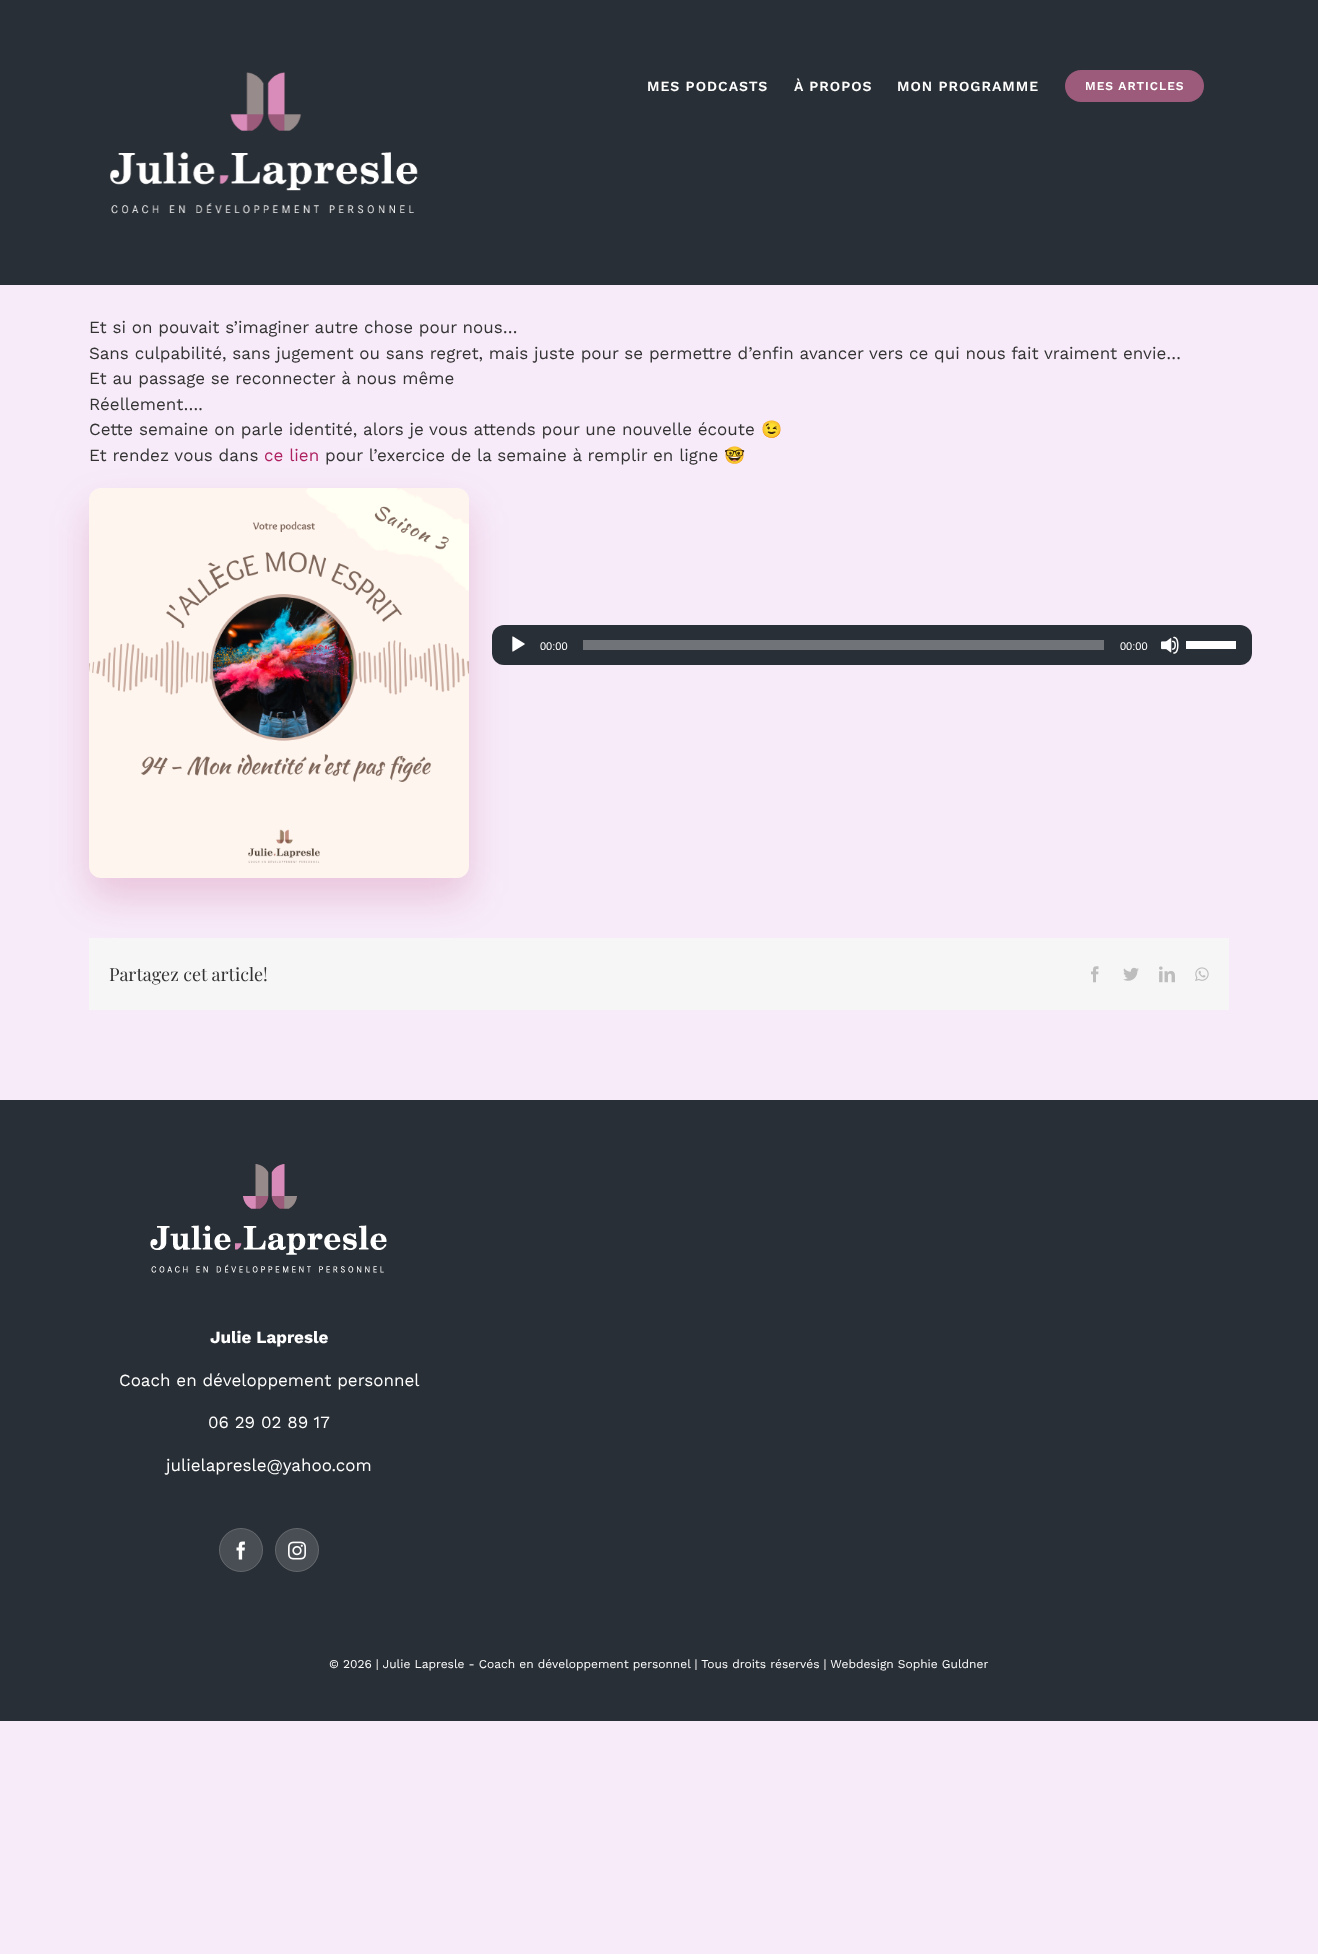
<svg xmlns="http://www.w3.org/2000/svg" width="1318" height="1954" viewBox="0 0 1318 1954">
  <rect width="100%" height="100%" fill="rgb(247,235,249)"/>
  <rect x="0" y="0" width="1318" height="285" fill="rgb(41,47,54)"/>
  <image x="110" y="72" width="308" height="142" href="pic1.png"/>
  <g font-family="Work Sans" font-size="14" font-weight="600" letter-spacing="1" fill="rgb(255,255,255)">
    <text x="647" y="91">MES PODCASTS</text>
    <text x="794" y="91">À PROPOS</text>
    <text x="897" y="91">MON PROGRAMME</text>
  </g>
  <rect x="1065" y="70" width="139" height="32" rx="16" fill="rgb(156,91,122)"/>
  <text x="1085" y="90" font-family="Work Sans" font-size="12" font-weight="600" letter-spacing="1" fill="rgb(255,255,255)">MES ARTICLES</text>
  <g font-family="Work Sans" font-size="17" fill="rgb(51,51,51)">
    <text>
      <tspan x="89" y="333">Et si on pouvait s’imaginer autre chose pour nous…</tspan>
      <tspan x="89" y="359">Sans culpabilité, sans jugement ou sans regret, mais juste pour se permettre d’enfin avancer vers ce qui nous fait vraiment envie…</tspan>
      <tspan x="89" y="384">Et au passage se reconnecter à nous même</tspan>
      <tspan x="89" y="410">Réellement….</tspan>
      <tspan x="89" y="435">Cette semaine on parle identité, alors je vous attends pour une nouvelle écoute</tspan>
    </text>
  </g>
  <text x="761" y="435" font-family="Noto Color Emoji" font-size="17" fill="rgb(51,51,51)">😉</text>
  <text x="89" y="461" font-family="Work Sans" font-size="17" fill="rgb(51,51,51)">Et rendez vous dans</text>
  <text x="264" y="461" font-family="Work Sans" font-size="17" fill="rgb(173,31,95)">ce lien</text>
  <text x="325" y="461" font-family="Work Sans" font-size="17" fill="rgb(51,51,51)">pour l’exercice de la semaine à remplir en ligne</text>
  <text x="724" y="461" font-family="Noto Color Emoji" font-size="17" fill="rgb(51,51,51)">🤓</text>
  <rect x="89" y="938" width="1140" height="72" fill="rgb(246,246,246)"/>
  <rect x="89" y="508" width="380" height="390" rx="12" fill="rgba(173,31,95,0.19)" filter="blur(19px)"/>
  <image x="89" y="488" width="380" height="390" href="pic2.png"/>
  <rect x="492" y="625" width="760" height="40" rx="12" fill="rgb(41,47,54)"/>
  <image x="512" y="636" width="13" height="16" href="pic3.png"/>
  <text x="540" y="650" font-family="Liberation Sans" font-size="11" fill="rgb(255,255,255)">00:00</text>
  <rect x="583" y="640" width="521" height="10" fill="rgb(112,116,120)"/>
  <text x="1120" y="650" font-family="Liberation Sans" font-size="11" fill="rgb(255,255,255)">00:00</text>
  <image x="1161" y="636" width="18" height="18" href="pic4.png"/>
  <rect x="1186" y="641" width="50" height="8" fill="rgb(255,255,255)"/>
  <text x="109" y="981" font-family="Playfair Display" font-size="18" fill="rgb(51,51,51)">Partagez cet article!</text>
  <image x="1091" y="966" width="8" height="17" href="pic5.png"/>
  <image x="1123" y="967" width="16" height="14" href="pic6.png"/>
  <image x="1159" y="966" width="16" height="17" href="pic7.png"/>
  <image x="1195" y="967" width="14" height="14" href="pic8.png"/>
  <rect x="0" y="1100" width="1318" height="621" fill="rgb(41,47,54)"/>
  <image x="150" y="1164" width="237" height="109" href="pic9.png"/>
  <text x="210" y="1343" font-family="Work Sans" font-size="17" font-weight="bold" fill="rgb(255,255,255)">Julie Lapresle</text>
  <g font-family="Work Sans" font-size="17" fill="rgb(255,255,255)">
    <text x="119" y="1386">Coach en développement personnel</text>
    <text x="208" y="1428">06 29 02 89 17</text>
    <text x="166" y="1471">julielapresle@yahoo.com</text>
  </g>
  <circle cx="241" cy="1550" r="22" fill="rgb(73,78,84)"/>
  <circle cx="241" cy="1550" r="21.5" fill="none" stroke="rgba(255,255,255,0.15)"/>
  <image x="236" y="1541" width="9" height="19" href="pic10.png"/>
  <circle cx="297" cy="1550" r="22" fill="rgb(73,78,84)"/>
  <circle cx="297" cy="1550" r="21.5" fill="none" stroke="rgba(255,255,255,0.15)"/>
  <image x="288" y="1541" width="18" height="19" href="pic11.png"/>
  <text x="329" y="1668" font-family="Work Sans" font-size="12" fill="rgb(255,255,255)">© 2026 | Julie Lapresle - Coach en développement personnel | Tous droits réservés | Webdesign Sophie Guldner</text>
</svg>
